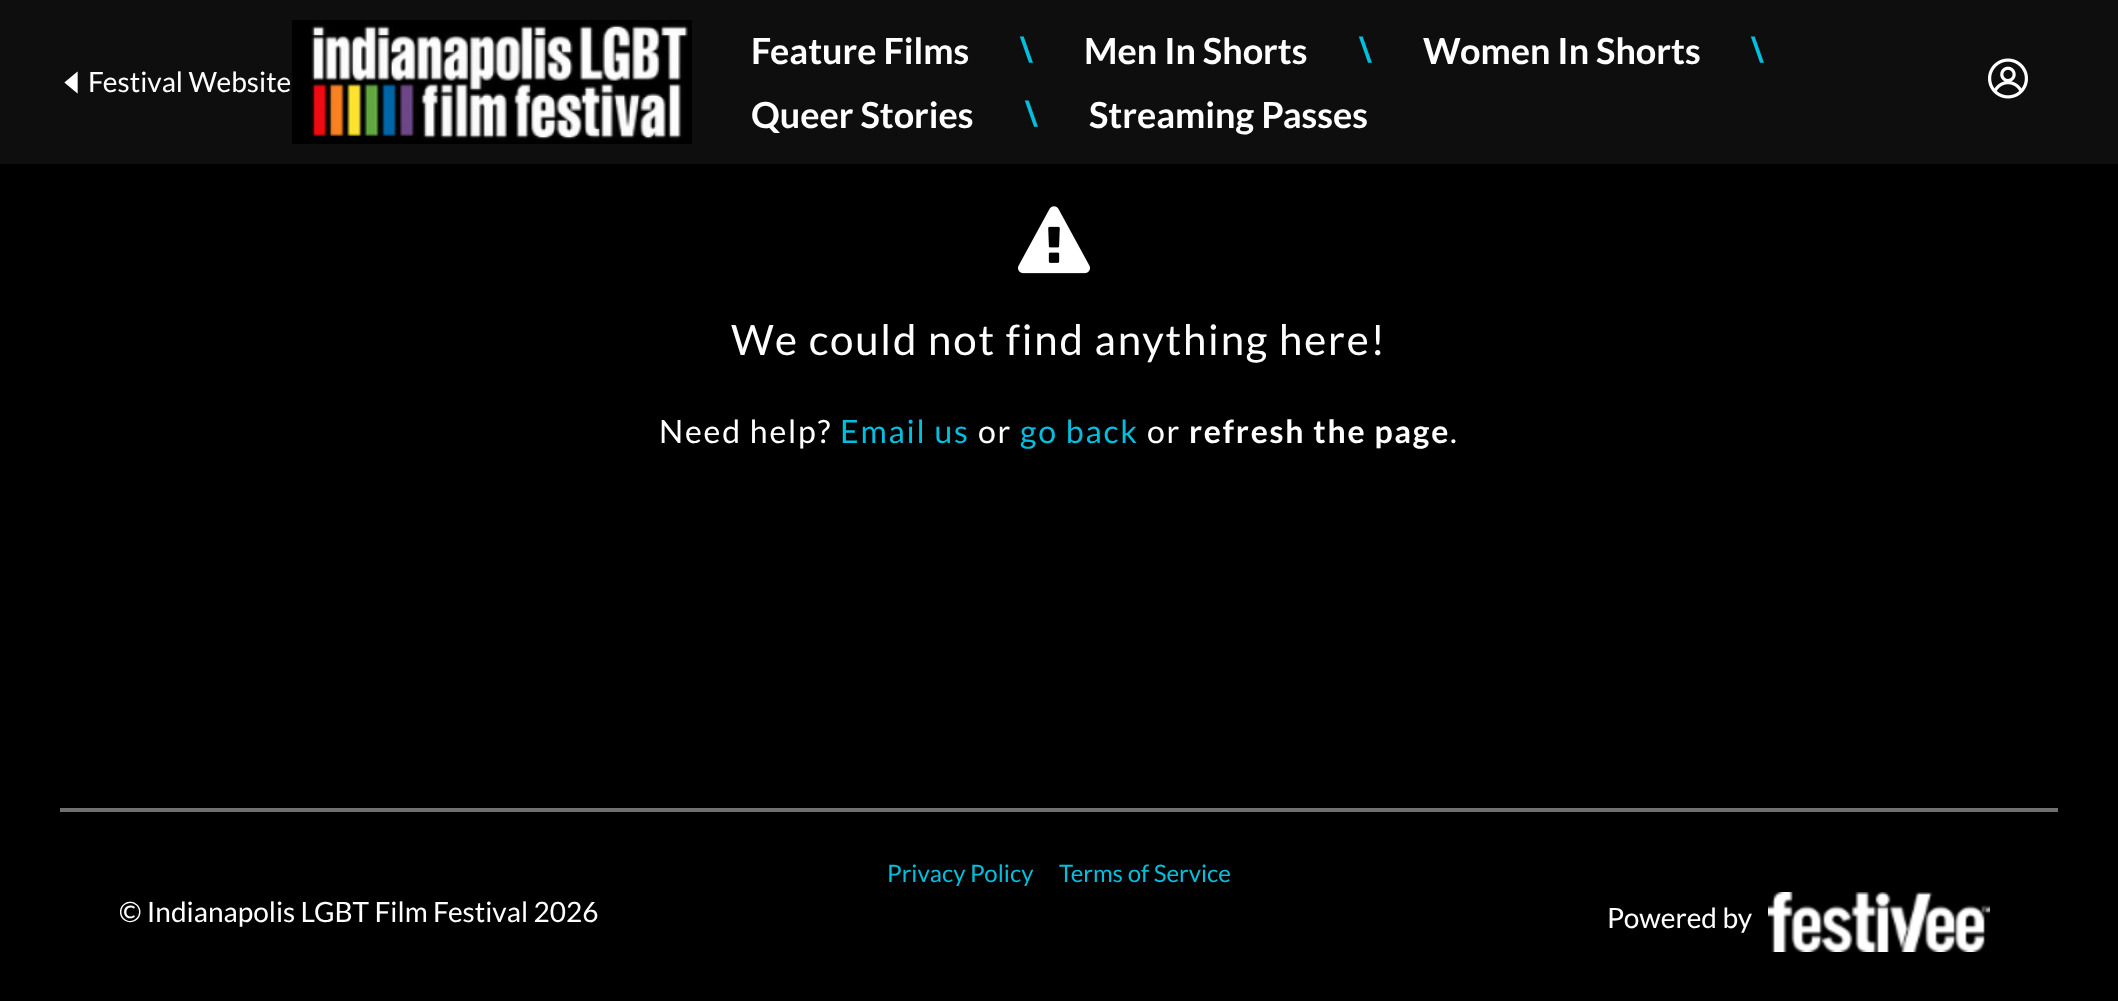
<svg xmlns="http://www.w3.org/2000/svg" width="2118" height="1001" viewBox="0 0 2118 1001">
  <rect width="100%" height="100%" fill="rgb(0,0,0)"/>
  <rect x="0" y="0" width="2118" height="164" fill="rgb(15,14,14)"/>
  <text x="60" y="92" font-family="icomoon" font-size="22" fill="rgb(255,255,255)">&lt;</text>
  <text x="88" y="92" font-family="Lato" font-size="28" fill="rgb(255,255,255)">Festival Website</text>
  <image x="292" y="20" width="400" height="124" href="pic1.png"/>
  <text x="751" y="64" font-family="Lato" font-size="36" font-weight="bold" fill="rgb(255,255,255)">Feature Films</text>
  <text x="1021" y="60" font-family="Montserrat" font-size="28" font-weight="bold" fill="rgb(2,191,223)">\</text>
  <text x="1084" y="64" font-family="Lato" font-size="36" font-weight="bold" fill="rgb(255,255,255)">Men In Shorts</text>
  <text x="1360" y="60" font-family="Montserrat" font-size="28" font-weight="bold" fill="rgb(2,191,223)">\</text>
  <text x="1423" y="64" font-family="Lato" font-size="36" font-weight="bold" fill="rgb(255,255,255)">Women In Shorts</text>
  <text x="1752" y="60" font-family="Montserrat" font-size="28" font-weight="bold" fill="rgb(2,191,223)">\</text>
  <text x="751" y="128" font-family="Lato" font-size="36" font-weight="bold" fill="rgb(255,255,255)">Queer Stories</text>
  <text x="1026" y="124" font-family="Montserrat" font-size="28" font-weight="bold" fill="rgb(2,191,223)">\</text>
  <text x="1089" y="128" font-family="Lato" font-size="36" font-weight="bold" fill="rgb(255,255,255)">Streaming Passes</text>
  <image x="1988" y="58" width="40" height="41" href="pic2.png"/>
  <image x="1018" y="206" width="72" height="68" href="pic3.png"/>
  <text x="731" y="355" font-family="Lato" font-size="42" letter-spacing="1.8" fill="rgb(255,255,255)">We could not find anything here!</text>
  <text x="659" y="443" font-family="Lato" font-size="32" letter-spacing="1.8" fill="rgb(255,255,255)">Need help?</text>
  <text x="840" y="443" font-family="Lato" font-size="32" letter-spacing="1.8" fill="rgb(2,191,223)">Email us</text>
  <text x="978" y="443" font-family="Lato" font-size="32" letter-spacing="1.8" fill="rgb(255,255,255)">or</text>
  <text x="1020" y="443" font-family="Lato" font-size="32" letter-spacing="1.8" fill="rgb(2,191,223)">go back</text>
  <text x="1147" y="443" font-family="Lato" font-size="32" letter-spacing="1.8" fill="rgb(255,255,255)">or</text>
  <text x="1189" y="443" font-family="Lato" font-size="32" font-weight="bold" letter-spacing="1.8" fill="rgb(255,255,255)">refresh the page</text>
  <text x="1450" y="443" font-family="Lato" font-size="32" letter-spacing="1.8" fill="rgb(255,255,255)">.</text>
  <rect x="60" y="808" width="1998" height="4" fill="rgb(112,112,112)"/>
  <g font-family="Lato" font-size="24" fill="rgb(2,191,223)">
    <text x="887" y="882">Privacy Policy</text>
    <text x="1059" y="882">Terms of Service</text>
  </g>
  <g font-family="Lato" font-size="28" fill="rgb(255,255,255)">
    <text x="119" y="922">© Indianapolis LGBT Film Festival 2026</text>
    <text x="1607" y="928">Powered by</text>
  </g>
  <image x="1768" y="892" width="222" height="60" href="pic4.png"/>
</svg>
